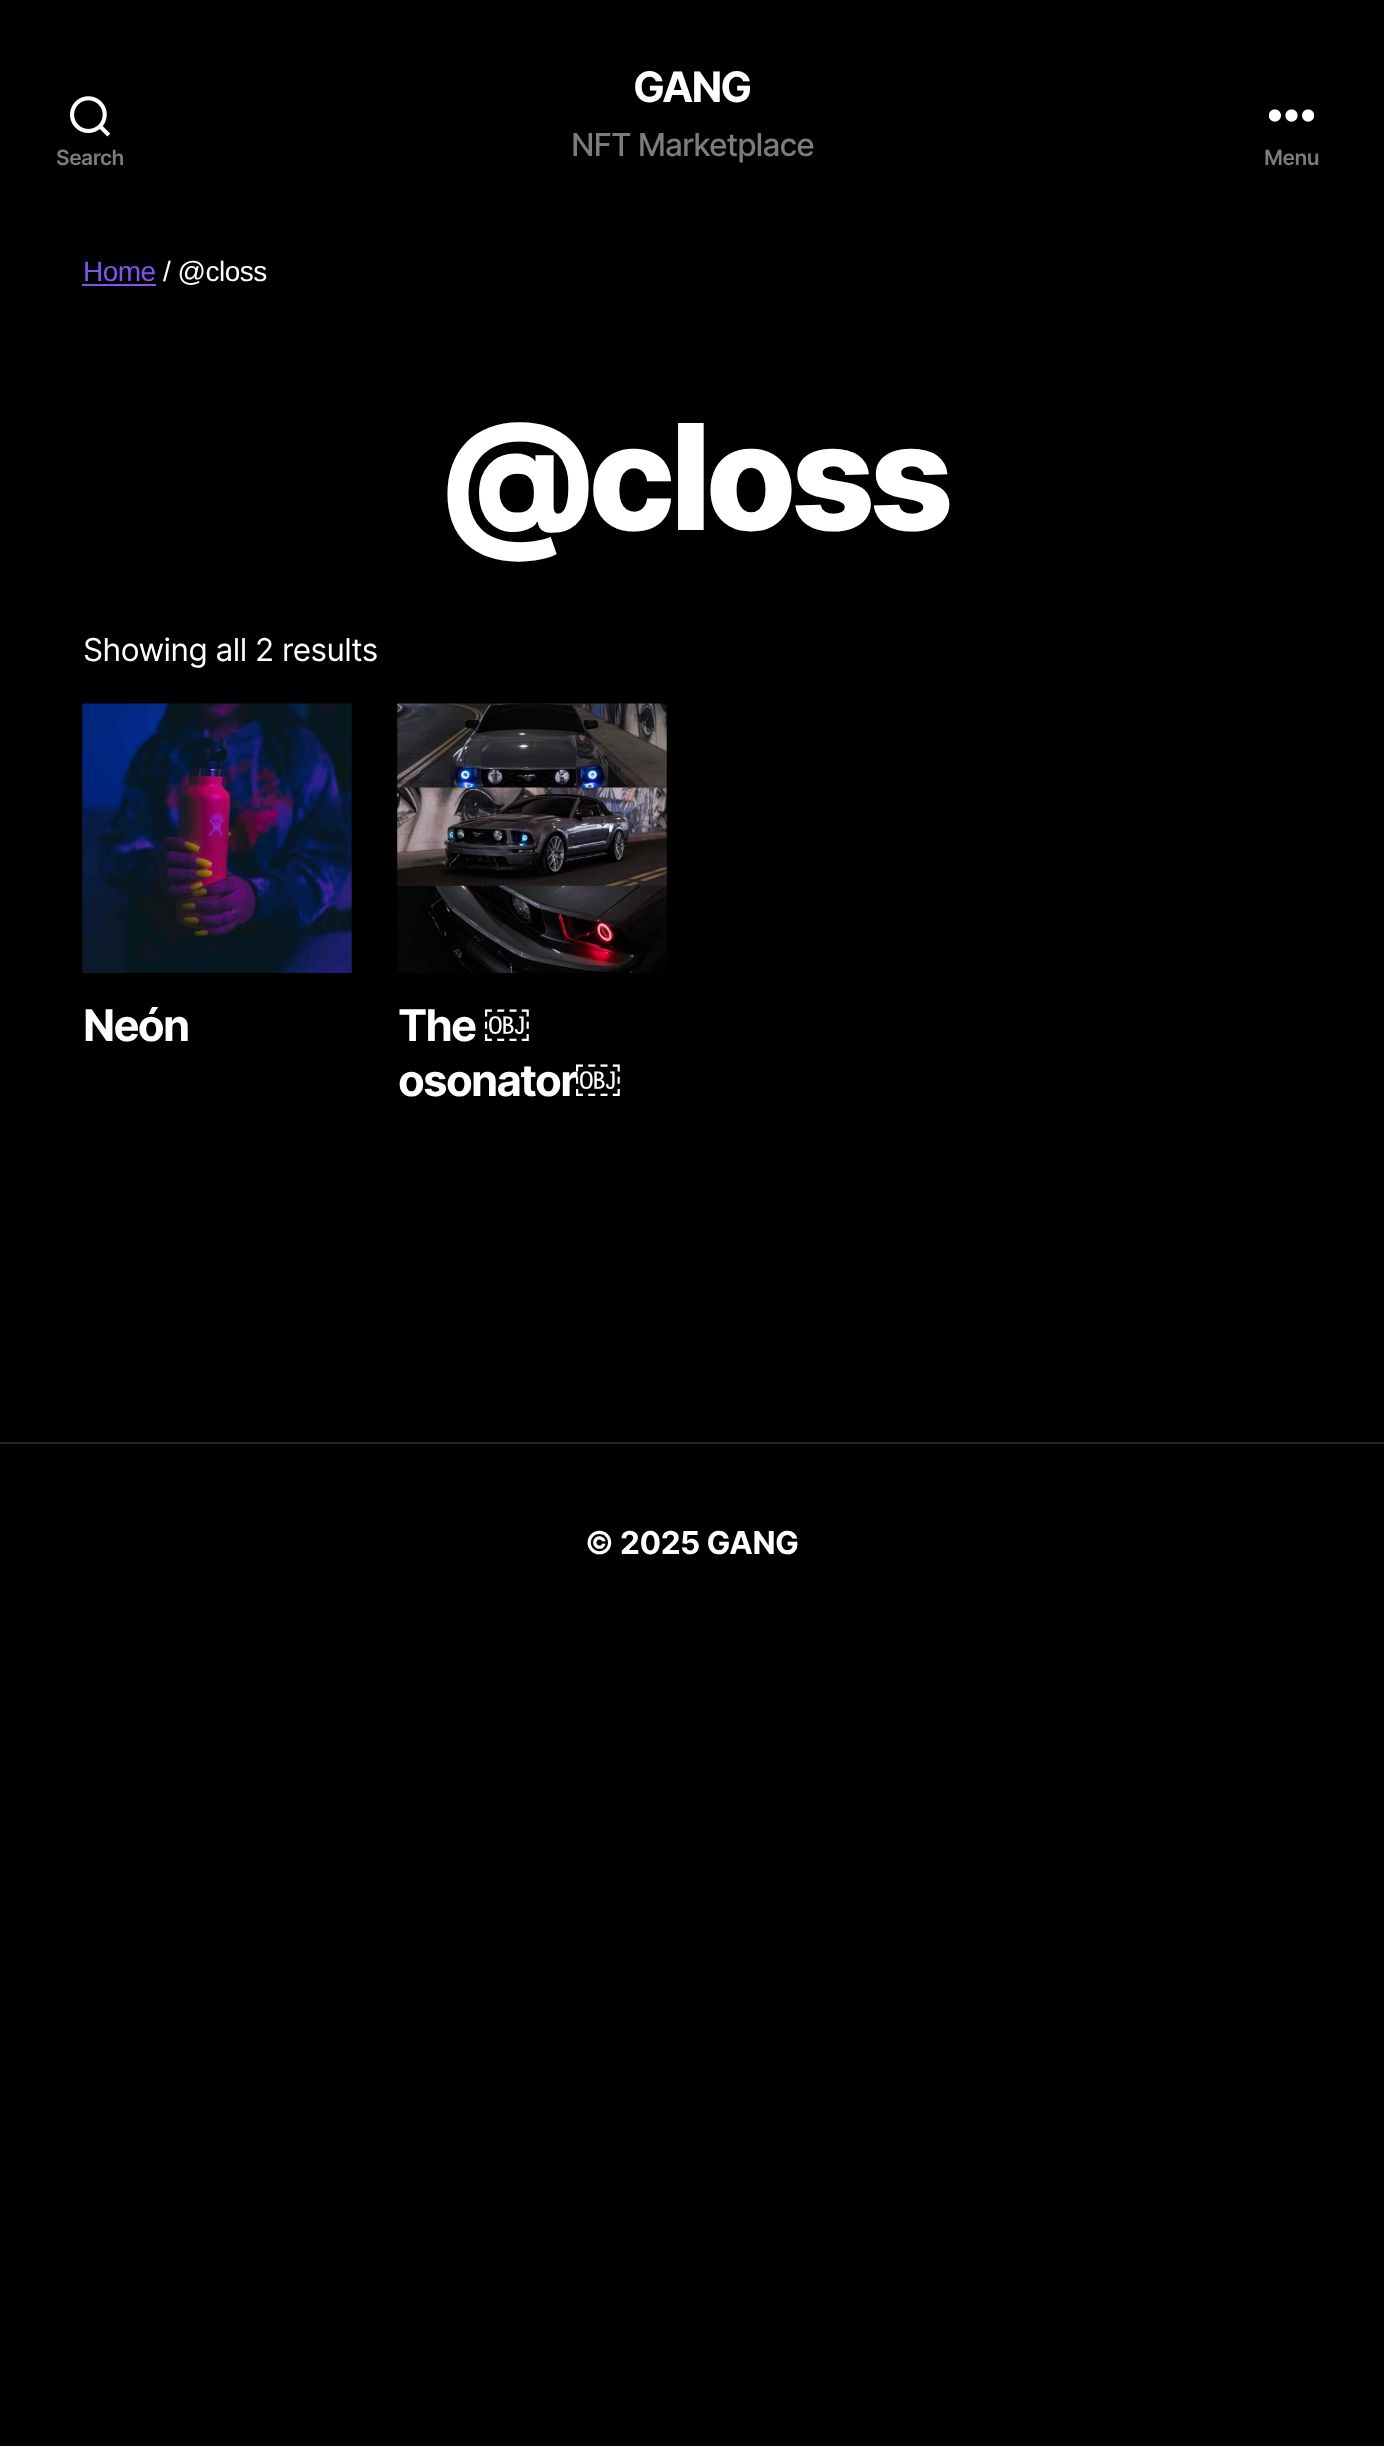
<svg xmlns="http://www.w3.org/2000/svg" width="1384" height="2446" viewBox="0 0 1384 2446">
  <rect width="100%" height="100%" fill="rgb(0,0,0)"/>
  <image x="70" y="96" width="40" height="41" href="pic1.png"/>
  <text x="56" y="165" font-family="Inter" font-size="21" font-weight="600" letter-spacing="-0.5" fill="rgb(124,124,124)">Search</text>
  <text x="633" y="102" font-family="Inter" font-size="42" font-weight="bold" letter-spacing="-2" fill="rgb(255,255,255)">GANG</text>
  <text x="571" y="156" font-family="Inter" font-size="31.5" font-weight="500" letter-spacing="-1" fill="rgb(124,124,124)">NFT Marketplace</text>
  <image x="1269" y="109" width="45" height="13" href="pic2.png"/>
  <text x="1264" y="165" font-family="Inter" font-size="21" font-weight="600" letter-spacing="-0.5" fill="rgb(124,124,124)">Menu</text>
  <text x="83" y="281" font-family="Liberation Sans" font-size="28" letter-spacing="-0.5" fill="rgb(129,85,241)">Home</text>
  <rect x="82" y="284" width="74" height="2" fill="rgb(129,85,241)"/>
  <text x="163" y="281" font-family="Liberation Sans" font-size="28" letter-spacing="-0.5" fill="rgb(255,255,255)">/ @closs</text>
  <text x="438" y="530" font-family="Inter" font-size="147" font-weight="800" letter-spacing="-6" fill="rgb(255,255,255)">@closs</text>
  <text x="83" y="661" font-family="Inter" font-size="31.5" letter-spacing="-0.5" fill="rgb(255,255,255)">Showing all 2 results</text>
  <image x="82" y="703" width="270" height="270" href="pic3.png"/>
  <text x="83" y="1041" font-family="Inter" font-size="43.75" font-weight="bold" letter-spacing="-1.75" fill="rgb(255,255,255)">Neón</text>
  <image x="397" y="703" width="270" height="270" href="pic4.png"/>
  <text x="398" y="1041" font-family="Inter" font-size="43.75" font-weight="bold" letter-spacing="-1.75" fill="rgb(255,255,255)">The</text>
  <text x="485" y="1041" font-family="Liberation Sans" font-size="43.75" font-weight="bold" letter-spacing="-1.75" fill="rgb(255,255,255)">￼</text>
  <text x="398" y="1096" font-family="Inter" font-size="43.75" font-weight="bold" letter-spacing="-1.75" fill="rgb(255,255,255)">osonator</text>
  <text x="576" y="1096" font-family="Liberation Sans" font-size="43.75" font-weight="bold" letter-spacing="-1.75" fill="rgb(255,255,255)">￼</text>
  <rect x="0" y="1442" width="1384" height="2" fill="rgb(38,38,38)"/>
  <text x="585" y="1554" font-family="Inter" font-size="31.5" font-weight="bold" letter-spacing="-0.5" fill="rgb(255,255,255)">© 2025 GANG</text>
</svg>
